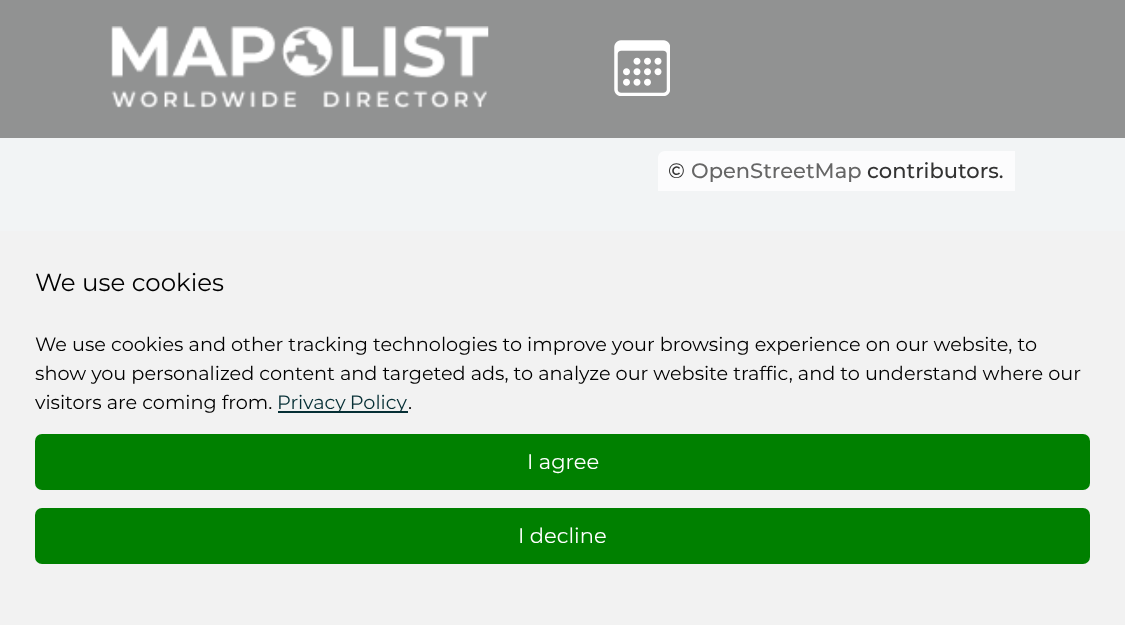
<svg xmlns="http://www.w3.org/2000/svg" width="1125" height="625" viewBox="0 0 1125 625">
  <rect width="100%" height="100%" fill="rgb(242,244,245)"/>
  <rect x="0" y="0" width="1125" height="138" fill="rgb(145,146,146)"/>
  <image x="111" y="26" width="378" height="83" href="pic1.png"/>
  <image x="614" y="40" width="56" height="56" href="pic2.png"/>
  <path d="M665 151H1015V191H658V158C658 154 661 151 665 151Z" fill="rgb(252,252,253)"/>
  <text x="668" y="178" font-family="Montserrat" font-size="21" font-weight="500" fill="rgb(51,51,51)">©</text>
  <text x="691" y="178" font-family="Montserrat" font-size="21" font-weight="500" fill="rgb(102,102,102)">OpenStreetMap</text>
  <text x="867" y="178" font-family="Montserrat" font-size="21" font-weight="500" fill="rgb(51,51,51)">contributors.</text>
  <rect x="0" y="231" width="1125" height="394" fill="rgb(242,242,242)"/>
  <text x="35" y="291" font-family="Montserrat" font-size="24.5" fill="rgb(0,0,0)">We use cookies</text>
  <g font-family="Montserrat" font-size="19.25" fill="rgb(0,0,0)">
    <text>
      <tspan x="35" y="351">We use cookies and other tracking technologies to improve your browsing experience on our website, to</tspan>
      <tspan x="35" y="380">show you personalized content and targeted ads, to analyze our website traffic, and to understand where our</tspan>
      <tspan x="35" y="409">visitors are coming from.</tspan>
    </text>
  </g>
  <rect x="278" y="411" width="130" height="2" fill="rgb(6,47,53)"/>
  <text x="277" y="409" word-spacing="-1" font-family="Montserrat" font-size="19.25" fill="rgb(6,47,53)">Privacy Policy</text>
  <text x="408" y="409" font-family="Montserrat" font-size="19.25" fill="rgb(0,0,0)">.</text>
  <rect x="35" y="434" width="1055" height="56" rx="7" fill="rgb(0,128,0)"/>
  <text x="527" y="469" font-family="Montserrat" font-size="21" fill="rgb(255,255,255)">I agree</text>
  <rect x="35" y="508" width="1055" height="56" rx="7" fill="rgb(0,128,0)"/>
  <text x="518" y="543" font-family="Montserrat" font-size="21" fill="rgb(255,255,255)">I decline</text>
</svg>
